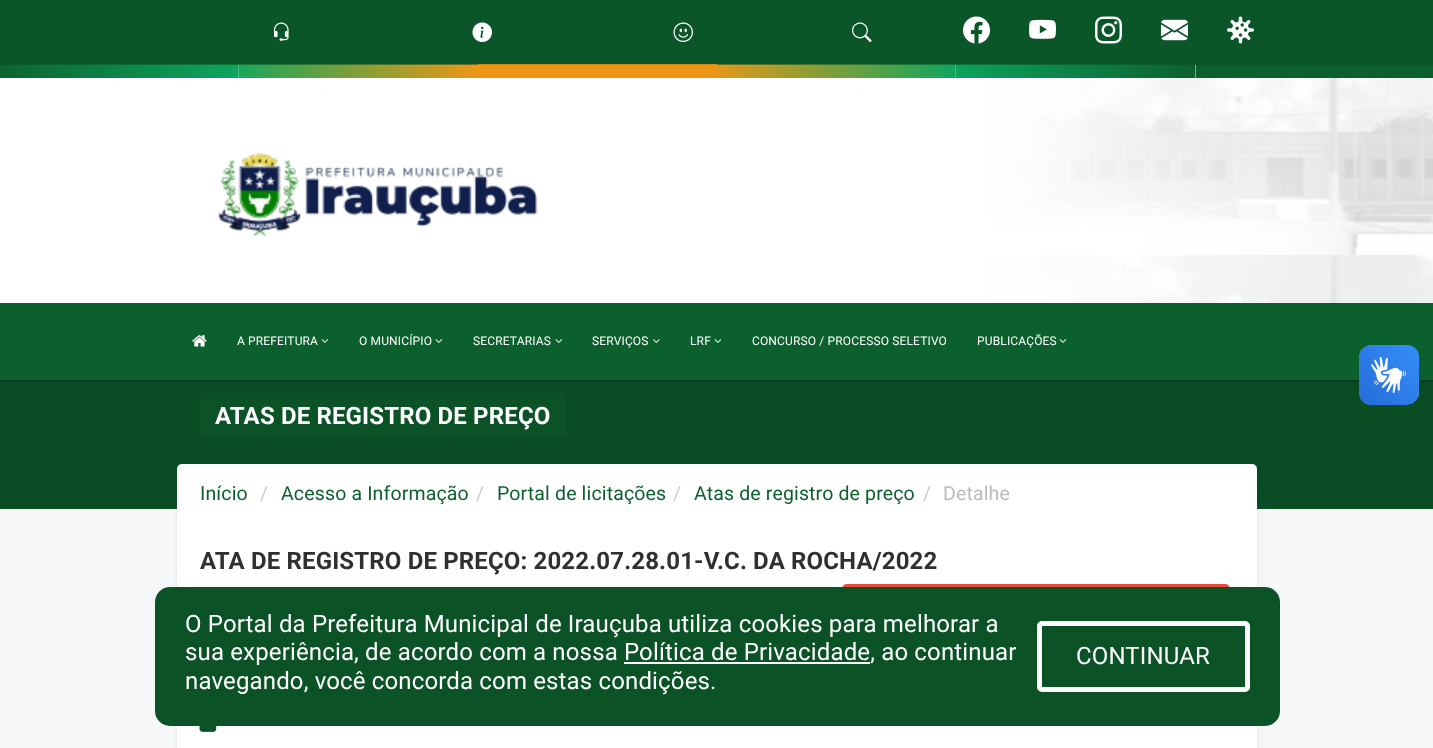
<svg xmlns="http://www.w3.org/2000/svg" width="1433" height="748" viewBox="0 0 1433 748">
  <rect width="100%" height="100%" fill="rgb(246,247,248)"/>
  <rect x="177" y="465" width="1080" height="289" fill="rgba(3,0,71,0.09)" filter="blur(2px)"/>
  <rect x="0" y="380" width="1433" height="129" fill="rgb(10,77,37)"/>
  <rect x="0" y="2" width="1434" height="379" fill="rgba(0,0,0,0.3)" filter="blur(1.5px)"/>
  <image x="0" y="65" width="1433" height="238" href="pic1.png"/>
  <rect x="0" y="0" width="1433" height="65" fill="rgb(12,96,46)"/>
  <image x="0" y="64" width="239" height="14" href="pic11.png"/>
  <image x="238" y="64" width="240" height="14" href="pic12.png"/>
  <rect x="478" y="64" width="239" height="14" fill="rgb(238,151,22)"/>
  <image x="717" y="64" width="239" height="14" href="pic13.png"/>
  <image x="955" y="64" width="241" height="14" href="pic14.png"/>
  <rect x="0" y="0" width="1433" height="65" fill="rgba(0,0,0,0.1)"/>
  <image x="273" y="22" width="16" height="19" href="pic2.png"/>
  <image x="472" y="22" width="20" height="20" href="pic3.png"/>
  <image x="673" y="22" width="20" height="20" href="pic4.png"/>
  <image x="852" y="22" width="20" height="20" href="pic5.png"/>
  <image x="963" y="16" width="27" height="28" href="pic6.png"/>
  <image x="1029" y="19" width="27" height="20" href="pic7.png"/>
  <image x="1095" y="16" width="27" height="28" href="pic8.png"/>
  <image x="1161" y="19" width="27" height="22" href="pic9.png"/>
  <image x="1227" y="16" width="27" height="28" href="pic10.png"/>
  <rect x="1196" y="65" width="237" height="13" fill="rgb(12,96,46)"/>
  <image x="218" y="152" width="320" height="84" href="pic15.png"/>
  <rect x="0" y="303" width="1433" height="77" fill="rgb(12,96,46)"/>
  <image x="192" y="335" width="15" height="12" href="pic16.png"/>
  <text x="237" y="345" font-family="Roboto" font-size="12" letter-spacing="0.15" fill="rgb(255,255,255)">A PREFEITURA</text>
  <image x="321" y="339" width="8" height="4" href="pic17.png"/>
  <text x="359" y="345" font-family="Roboto" font-size="12" letter-spacing="0.15" fill="rgb(255,255,255)">O MUNICÍPIO</text>
  <image x="435" y="339" width="8" height="4" href="pic17.png"/>
  <text x="473" y="345" font-family="Roboto" font-size="12" letter-spacing="0.15" fill="rgb(255,255,255)">SECRETARIAS</text>
  <image x="555" y="339" width="8" height="4" href="pic17.png"/>
  <text x="592" y="345" font-family="Roboto" font-size="12" letter-spacing="0.15" fill="rgb(255,255,255)">SERVIÇOS</text>
  <image x="653" y="339" width="7" height="4" href="pic18.png"/>
  <text x="690" y="345" font-family="Roboto" font-size="12" letter-spacing="0.15" fill="rgb(255,255,255)">LRF</text>
  <image x="714" y="339" width="8" height="4" href="pic17.png"/>
  <g font-family="Roboto" font-size="12" letter-spacing="0.15" fill="rgb(255,255,255)">
    <text x="752" y="345">CONCURSO / PROCESSO SELETIVO</text>
    <text x="977" y="345">PUBLICAÇÕES</text>
  </g>
  <image x="1059" y="339" width="8" height="4" href="pic17.png"/>
  <image x="1359" y="345" width="60" height="60" href="pic19.png"/>
  <image x="1359" y="345" width="60" height="60" href="pic20.png"/>
  <rect x="200" y="393" width="366" height="44" fill="rgb(11,83,39)"/>
  <text x="215" y="424" font-family="Roboto" font-size="24" font-weight="bold" letter-spacing="0.15" fill="rgb(255,255,255)">ATAS DE REGISTRO DE PREÇO</text>
  <rect x="177" y="519" width="1080" height="229" fill="rgb(255,255,255)"/>
  <rect x="177" y="464" width="1080" height="60" rx="5" fill="rgb(255,255,255)"/>
  <text x="200" y="500" font-family="Roboto" font-size="19.5" letter-spacing="0.15" fill="rgb(12,96,46)">Início</text>
  <text x="260" y="500" font-family="Roboto" font-size="19.5" letter-spacing="0.15" fill="rgb(204,204,204)">/</text>
  <text x="281" y="500" font-family="Roboto" font-size="19.5" letter-spacing="0.15" fill="rgb(12,96,46)">Acesso a Informação</text>
  <text x="476" y="500" font-family="Roboto" font-size="19.5" letter-spacing="0.15" fill="rgb(204,204,204)">/</text>
  <text x="497" y="500" font-family="Roboto" font-size="19.5" letter-spacing="0.15" fill="rgb(12,96,46)">Portal de licitações</text>
  <text x="673" y="500" font-family="Roboto" font-size="19.5" letter-spacing="0.15" fill="rgb(204,204,204)">/</text>
  <text x="694" y="500" font-family="Roboto" font-size="19.5" letter-spacing="0.15" fill="rgb(12,96,46)">Atas de registro de preço</text>
  <text x="923" y="500" font-family="Roboto" font-size="19.5" letter-spacing="0.15" fill="rgb(204,204,204)">/</text>
  <text x="943" y="500" font-family="Roboto" font-size="19.5" letter-spacing="0.15" fill="rgb(187,187,187)">Detalhe</text>
  <text x="200" y="569" font-family="Roboto" font-size="24" font-weight="bold" letter-spacing="0.15" fill="rgb(48,48,48)">ATA DE REGISTRO DE PREÇO: 2022.07.28.01-V.C. DA ROCHA/2022</text>
  <rect x="842" y="584" width="388" height="42" rx="5" fill="rgb(231,76,60)"/>
  <image x="199" y="726" width="18" height="6" href="pic21.png"/>
  <rect x="155" y="587" width="1125" height="139" rx="15" fill="rgb(11,83,39)"/>
  <g font-family="Roboto" font-size="24" letter-spacing="0.15" fill="rgb(255,255,255)">
    <text>
      <tspan x="185" y="632">O Portal da Prefeitura Municipal de Irauçuba utiliza cookies para melhorar a</tspan>
      <tspan x="185" y="660">sua experiência, de acordo com a nossa Política de Privacidade, ao continuar</tspan>
    </text>
  </g>
  <rect x="624" y="662" width="246" height="2" fill="rgb(255,255,255)"/>
  <text x="185" y="689" font-family="Roboto" font-size="24" letter-spacing="0.15" fill="rgb(255,255,255)">navegando, você concorda com estas condições.</text>
  <rect x="1039.5" y="623.5" width="208" height="66" rx="2.5" fill="none" stroke="rgb(255,255,255)" stroke-width="5"/>
  <text x="1076" y="664" font-family="Roboto" font-size="24" letter-spacing="0.15" fill="rgb(255,255,255)">CONTINUAR</text>
</svg>
